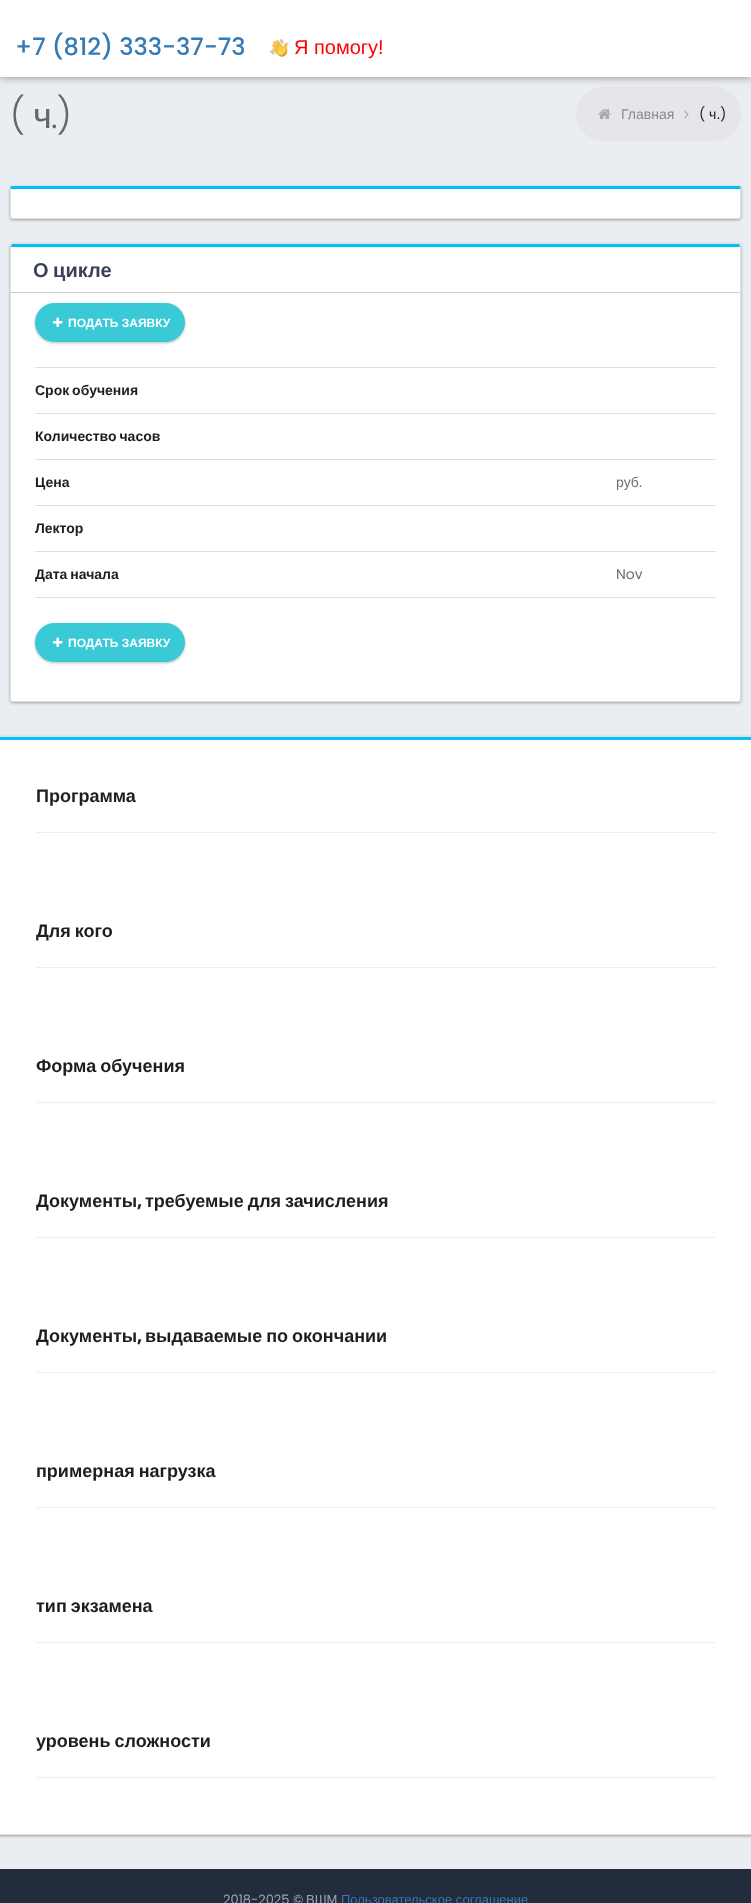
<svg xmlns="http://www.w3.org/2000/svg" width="751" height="1903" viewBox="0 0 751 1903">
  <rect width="100%" height="100%" fill="rgb(34,44,60)"/>
  <rect x="0" y="77" width="751" height="1792" fill="rgb(234,238,243)"/>
  <rect x="576" y="87" width="165" height="54" rx="27" fill="rgb(230,229,233)"/>
  <rect x="0" y="-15" width="751" height="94" fill="rgba(0,0,0,0.12)" filter="blur(5px)"/>
  <rect x="0" y="-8" width="751" height="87" fill="rgba(0,0,0,0.16)" filter="blur(2.5px)"/>
  <rect x="0" y="0" width="751" height="77" fill="rgb(255,255,255)"/>
  <text x="15" y="55" font-family="Poppins" font-size="24" font-weight="500" fill="rgb(51,122,183)">+7 (812) 333-37-73</text>
  <image x="270" y="39" width="18" height="18" href="pic1.png"/>
  <text x="294" y="54" font-family="Liberation Sans" font-size="20" fill="rgb(255,0,0)">Я помогу!</text>
  <text x="10" y="128" font-family="Poppins" font-size="36" font-weight="300" letter-spacing="-1" fill="rgb(102,102,102)">(</text>
  <text x="33" y="128" font-family="Liberation Sans" font-size="36" letter-spacing="-1" fill="rgb(102,102,102)">ч</text>
  <text x="51" y="128" font-family="Poppins" font-size="36" font-weight="300" letter-spacing="-1" fill="rgb(102,102,102)">.)</text>
  <image x="598" y="109" width="13" height="10" href="pic2.png"/>
  <text x="621" y="119" font-family="Liberation Sans" font-size="14" fill="rgb(136,136,136)">Главная</text>
  <image x="684" y="110" width="5" height="9" href="pic3.png"/>
  <text x="699" y="119" font-family="Poppins" font-size="14" fill="rgb(30,30,30)">(</text>
  <text x="709" y="119" font-family="Liberation Sans" font-size="14" fill="rgb(30,30,30)">ч</text>
  <text x="717" y="119" font-family="Poppins" font-size="14" fill="rgb(30,30,30)">.)</text>
  <rect x="10" y="187" width="731" height="33" rx="3" fill="rgba(0,0,0,0.33)" filter="blur(1.5px)"/>
  <rect x="10" y="186" width="731" height="33" rx="3" fill="rgb(255,255,255)"/>
  <path d="M13 186C12 186 11 186 10 187L11 189H740L741 187C740 186 739 186 738 186Z" fill="rgb(0,192,239)"/>
  <path d="M741 216V189L740.5 187L740 189V216C740 216.5 740 217 739.5 217.5L740 218C741 218 741 217 741 216Z" fill="rgba(0,0,0,0.12)"/>
  <path d="M13 219H738L740 218L739 217L738 218H13L12 217L11 218Z" fill="rgba(0,0,0,0.12)"/>
  <path d="M10 189V216C10 217 10 218 11 218L11.5 217.5C11 217 11 216.5 11 216V189L10.5 187Z" fill="rgba(0,0,0,0.12)"/>
  <rect x="10" y="244" width="731" height="459" rx="3" fill="rgba(0,0,0,0.33)" filter="blur(1.5px)"/>
  <rect x="10" y="243" width="731" height="459" rx="3" fill="rgb(255,255,255)"/>
  <rect x="10.5" y="243.5" width="730" height="458" rx="2.5" fill="none" stroke="rgba(0,0,0,0.12)"/>
  <path d="M13 244C11 244 11 246 11 247H740C740 246 740 244 738 244Z" fill="rgb(0,192,239)"/>
  <rect x="11" y="292" width="729" height="1" fill="rgb(204,204,204)"/>
  <text x="33" y="277" word-spacing="-1" font-family="Liberation Sans" font-size="20" font-weight="bold" fill="rgb(58,64,91)">О цикле</text>
  <rect x="35" y="304" width="150" height="39" rx="19.5" fill="rgba(0,0,0,0.18)" filter="blur(1px)"/>
  <rect x="35" y="304" width="150" height="39" rx="19.5" fill="rgba(0,0,0,0.1)" filter="blur(1.5px)"/>
  <rect x="35.5" y="303.5" width="149" height="38" rx="19" fill="rgb(58,201,214)" stroke="rgb(58,201,214)"/>
  <image x="53" y="317" width="10" height="10" href="pic4.png"/>
  <text x="68" y="327" font-family="Liberation Sans" font-size="12" font-weight="bold" fill="rgb(255,255,255)">ПОДАТЬ ЗАЯВКУ</text>
  <rect x="35" y="367" width="681" height="1" fill="rgb(223,223,223)"/>
  <text x="35" y="395" word-spacing="-1" font-family="Liberation Sans" font-size="14" font-weight="bold" fill="rgb(30,30,30)">Срок обучения</text>
  <rect x="35" y="413" width="681" height="1" fill="rgb(223,223,223)"/>
  <text x="35" y="441" word-spacing="-1" font-family="Liberation Sans" font-size="14" font-weight="bold" fill="rgb(30,30,30)">Количество часов</text>
  <rect x="35" y="459" width="681" height="1" fill="rgb(223,223,223)"/>
  <text x="35" y="487" font-family="Liberation Sans" font-size="14" font-weight="bold" fill="rgb(30,30,30)">Цена</text>
  <text x="616" y="487" font-family="Liberation Sans" font-size="14" fill="rgb(111,109,109)">руб</text>
  <text x="639" y="487" font-family="Poppins" font-size="14" fill="rgb(111,109,109)">.</text>
  <rect x="35" y="505" width="681" height="1" fill="rgb(223,223,223)"/>
  <text x="35" y="533" font-family="Liberation Sans" font-size="14" font-weight="bold" fill="rgb(30,30,30)">Лектор</text>
  <rect x="35" y="551" width="681" height="1" fill="rgb(223,223,223)"/>
  <rect x="35" y="597" width="681" height="1" fill="rgb(223,223,223)"/>
  <text x="35" y="579" word-spacing="-1" font-family="Liberation Sans" font-size="14" font-weight="bold" fill="rgb(30,30,30)">Дата начала</text>
  <text x="616" y="579" font-family="Poppins" font-size="14" fill="rgb(111,109,109)">Nov</text>
  <rect x="35" y="624" width="150" height="39" rx="19.5" fill="rgba(0,0,0,0.18)" filter="blur(1px)"/>
  <rect x="35" y="624" width="150" height="39" rx="19.5" fill="rgba(0,0,0,0.1)" filter="blur(1.5px)"/>
  <rect x="35.5" y="623.5" width="149" height="38" rx="19" fill="rgb(58,201,214)" stroke="rgb(58,201,214)"/>
  <image x="53" y="637" width="10" height="10" href="pic4.png"/>
  <text x="68" y="647" font-family="Liberation Sans" font-size="12" font-weight="bold" fill="rgb(255,255,255)">ПОДАТЬ ЗАЯВКУ</text>
  <rect x="-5" y="737" width="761" height="1099" rx="3" fill="rgba(0,0,0,0.33)" filter="blur(1.5px)"/>
  <rect x="0" y="740" width="751" height="1094" fill="rgb(255,255,255)"/>
  <rect x="-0.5" y="736.5" width="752" height="1098" fill="none" stroke="rgb(223,223,223)"/>
  <rect x="0" y="737" width="751" height="3" fill="rgb(0,192,239)"/>
  <text x="36" y="802" font-family="Liberation Sans" font-size="18" font-weight="bold" fill="rgb(30,30,30)">Программа</text>
  <rect x="36" y="832" width="679" height="1" fill="rgb(238,238,238)"/>
  <text x="36" y="937" word-spacing="-1" font-family="Liberation Sans" font-size="18" font-weight="bold" fill="rgb(30,30,30)">Для кого</text>
  <rect x="36" y="967" width="679" height="1" fill="rgb(238,238,238)"/>
  <text x="36" y="1072" word-spacing="-1" font-family="Liberation Sans" font-size="18" font-weight="bold" fill="rgb(30,30,30)">Форма обучения</text>
  <rect x="36" y="1102" width="679" height="1" fill="rgb(238,238,238)"/>
  <text x="36" y="1207" font-family="Liberation Sans" font-size="18" font-weight="bold" fill="rgb(30,30,30)">Документы</text>
  <text x="137" y="1207" font-family="Poppins" font-size="18" font-weight="bold" fill="rgb(30,30,30)">,</text>
  <text x="145" y="1207" word-spacing="-1" font-family="Liberation Sans" font-size="18" font-weight="bold" fill="rgb(30,30,30)">требуемые для зачисления</text>
  <rect x="36" y="1237" width="679" height="1" fill="rgb(238,238,238)"/>
  <text x="36" y="1342" font-family="Liberation Sans" font-size="18" font-weight="bold" fill="rgb(30,30,30)">Документы</text>
  <text x="137" y="1342" font-family="Poppins" font-size="18" font-weight="bold" fill="rgb(30,30,30)">,</text>
  <text x="145" y="1342" word-spacing="-1" font-family="Liberation Sans" font-size="18" font-weight="bold" fill="rgb(30,30,30)">выдаваемые по окончании</text>
  <rect x="36" y="1372" width="679" height="1" fill="rgb(238,238,238)"/>
  <text x="36" y="1477" word-spacing="-1" font-family="Liberation Sans" font-size="18" font-weight="bold" fill="rgb(30,30,30)">примерная нагрузка</text>
  <rect x="36" y="1507" width="679" height="1" fill="rgb(238,238,238)"/>
  <text x="36" y="1612" word-spacing="-1" font-family="Liberation Sans" font-size="18" font-weight="bold" fill="rgb(30,30,30)">тип экзамена</text>
  <rect x="36" y="1642" width="679" height="1" fill="rgb(238,238,238)"/>
  <text x="36" y="1747" word-spacing="-1" font-family="Liberation Sans" font-size="18" font-weight="bold" fill="rgb(30,30,30)">уровень сложности</text>
  <rect x="36" y="1777" width="679" height="1" fill="rgb(238,238,238)"/>
  <text x="223" y="1904" font-family="Poppins" font-size="13" fill="rgb(152,166,186)">2018-2025 ©</text>
  <text x="306" y="1904" font-family="Liberation Sans" font-size="13" fill="rgb(152,166,186)">ВШМ</text>
  <text x="341" y="1904" font-family="Liberation Sans" font-size="13" fill="rgb(51,122,183)">Пользовательское соглашение</text>
</svg>
